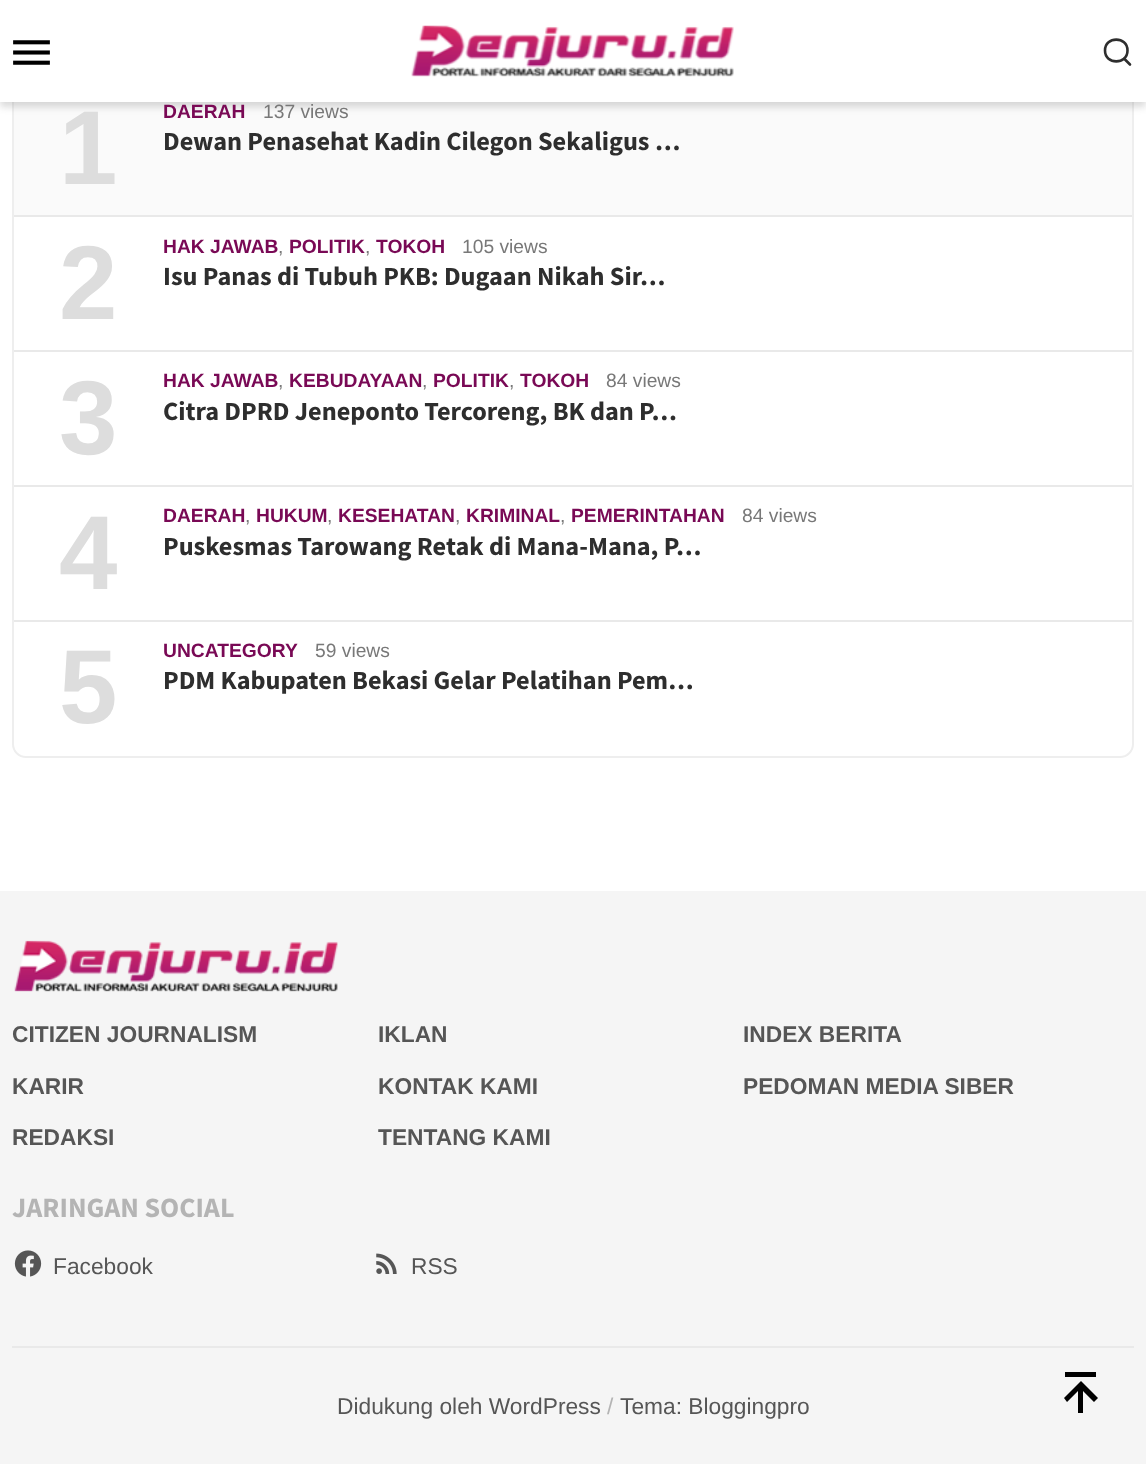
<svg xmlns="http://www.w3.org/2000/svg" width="1146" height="1464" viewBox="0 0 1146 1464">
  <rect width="100%" height="100%" fill="rgb(245,245,245)"/>
  <rect x="0" y="102" width="1146" height="789" fill="rgb(255,255,255)"/>
  <rect x="13" y="-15" width="1120" height="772" rx="13" fill="none" stroke="rgb(238,238,238)" stroke-width="2"/>
  <rect x="14" y="102" width="1118" height="113" fill="rgb(250,250,250)"/>
  <rect x="0" y="5" width="1146" height="102" fill="rgba(52,52,52,0.18)" filter="blur(3.5px)"/>
  <rect x="0" y="0" width="1146" height="102" fill="rgb(255,255,255)"/>
  <image x="13" y="40" width="37" height="25" href="pic1.png"/>
  <image x="411" y="25" width="323" height="52" href="pic2.png"/>
  <path d="M1130 64.5L1124 58.5M1127.5 50.5C1127.5 65 1105 65 1105 50.5C1105 36 1127.5 36 1127.5 50.5Z" fill="none" stroke="rgb(46,46,46)" stroke-width="2.6" stroke-linecap="round"/>
  <rect x="14" y="215" width="1118" height="2" fill="rgb(233,233,233)"/>
  <text x="59" y="184" font-family="Liberation Sans" font-size="105" font-weight="bold" letter-spacing="-8" fill="rgb(221,221,221)">1</text>
  <text x="163" y="118" font-family="Liberation Sans" font-size="19.25" font-weight="bold" fill="rgb(121,9,85)">DAERAH</text>
  <text x="263" y="118" font-family="Liberation Sans" font-size="19.25" fill="rgb(120,120,120)">137 views</text>
  <text x="163" y="150" font-family="Source Sans Pro" font-size="26.25" font-weight="bold" fill="rgb(46,46,46)">Dewan Penasehat Kadin Cilegon Sekaligus …</text>
  <rect x="14" y="350" width="1118" height="2" fill="rgb(233,233,233)"/>
  <text x="59" y="319" font-family="Liberation Sans" font-size="105" font-weight="bold" letter-spacing="-8" fill="rgb(221,221,221)">2</text>
  <text x="163" y="253" font-family="Liberation Sans" font-size="19.25" font-weight="bold" fill="rgb(121,9,85)">HAK JAWAB</text>
  <text x="278" y="253" font-family="Liberation Sans" font-size="19.25" fill="rgb(120,120,120)">,</text>
  <text x="289" y="253" font-family="Liberation Sans" font-size="19.25" font-weight="bold" fill="rgb(121,9,85)">POLITIK</text>
  <text x="365" y="253" font-family="Liberation Sans" font-size="19.25" fill="rgb(120,120,120)">,</text>
  <text x="376" y="253" font-family="Liberation Sans" font-size="19.25" font-weight="bold" fill="rgb(121,9,85)">TOKOH</text>
  <text x="462" y="253" font-family="Liberation Sans" font-size="19.25" fill="rgb(120,120,120)">105 views</text>
  <text x="163" y="285" font-family="Source Sans Pro" font-size="26.25" font-weight="bold" fill="rgb(46,46,46)">Isu Panas di Tubuh PKB: Dugaan Nikah Sir…</text>
  <rect x="14" y="485" width="1118" height="2" fill="rgb(233,233,233)"/>
  <text x="59" y="454" font-family="Liberation Sans" font-size="105" font-weight="bold" letter-spacing="-8" fill="rgb(221,221,221)">3</text>
  <text x="163" y="387" font-family="Liberation Sans" font-size="19.25" font-weight="bold" fill="rgb(121,9,85)">HAK JAWAB</text>
  <text x="278" y="387" font-family="Liberation Sans" font-size="19.25" fill="rgb(120,120,120)">,</text>
  <text x="289" y="387" font-family="Liberation Sans" font-size="19.25" font-weight="bold" fill="rgb(121,9,85)">KEBUDAYAAN</text>
  <text x="422" y="387" font-family="Liberation Sans" font-size="19.25" fill="rgb(120,120,120)">,</text>
  <text x="433" y="387" font-family="Liberation Sans" font-size="19.25" font-weight="bold" fill="rgb(121,9,85)">POLITIK</text>
  <text x="509" y="387" font-family="Liberation Sans" font-size="19.25" fill="rgb(120,120,120)">,</text>
  <text x="520" y="387" font-family="Liberation Sans" font-size="19.25" font-weight="bold" fill="rgb(121,9,85)">TOKOH</text>
  <text x="606" y="387" font-family="Liberation Sans" font-size="19.25" fill="rgb(120,120,120)">84 views</text>
  <text x="163" y="420" font-family="Source Sans Pro" font-size="26.25" font-weight="bold" fill="rgb(46,46,46)">Citra DPRD Jeneponto Tercoreng, BK dan P…</text>
  <rect x="14" y="620" width="1118" height="2" fill="rgb(233,233,233)"/>
  <text x="59" y="589" font-family="Liberation Sans" font-size="105" font-weight="bold" letter-spacing="-8" fill="rgb(221,221,221)">4</text>
  <text x="163" y="522" font-family="Liberation Sans" font-size="19.25" font-weight="bold" fill="rgb(121,9,85)">DAERAH</text>
  <text x="245" y="522" font-family="Liberation Sans" font-size="19.25" fill="rgb(120,120,120)">,</text>
  <text x="256" y="522" font-family="Liberation Sans" font-size="19.25" font-weight="bold" fill="rgb(121,9,85)">HUKUM</text>
  <text x="327" y="522" font-family="Liberation Sans" font-size="19.25" fill="rgb(120,120,120)">,</text>
  <text x="338" y="522" font-family="Liberation Sans" font-size="19.25" font-weight="bold" fill="rgb(121,9,85)">KESEHATAN</text>
  <text x="455" y="522" font-family="Liberation Sans" font-size="19.25" fill="rgb(120,120,120)">,</text>
  <text x="466" y="522" font-family="Liberation Sans" font-size="19.25" font-weight="bold" fill="rgb(121,9,85)">KRIMINAL</text>
  <text x="560" y="522" font-family="Liberation Sans" font-size="19.25" fill="rgb(120,120,120)">,</text>
  <text x="571" y="522" font-family="Liberation Sans" font-size="19.25" font-weight="bold" fill="rgb(121,9,85)">PEMERINTAHAN</text>
  <text x="742" y="522" font-family="Liberation Sans" font-size="19.25" fill="rgb(120,120,120)">84 views</text>
  <text x="163" y="555" font-family="Source Sans Pro" font-size="26.25" font-weight="bold" fill="rgb(46,46,46)">Puskesmas Tarowang Retak di Mana-Mana, P…</text>
  <text x="59" y="723" font-family="Liberation Sans" font-size="105" font-weight="bold" letter-spacing="-8" fill="rgb(221,221,221)">5</text>
  <text x="163" y="657" font-family="Liberation Sans" font-size="19.25" font-weight="bold" fill="rgb(121,9,85)">UNCATEGORY</text>
  <text x="315" y="657" font-family="Liberation Sans" font-size="19.25" fill="rgb(120,120,120)">59 views</text>
  <text x="163" y="689" font-family="Source Sans Pro" font-size="26.25" font-weight="bold" fill="rgb(46,46,46)">PDM Kabupaten Bekasi Gelar Pelatihan Pem…</text>
  <image x="14" y="940" width="324" height="52" href="pic3.png"/>
  <g font-family="Liberation Sans" font-size="22.75" font-weight="bold" fill="rgb(86,86,86)">
    <text x="12" y="1042">CITIZEN JOURNALISM</text>
    <text x="378" y="1042">IKLAN</text>
    <text x="743" y="1042">INDEX BERITA</text>
    <text x="12" y="1094">KARIR</text>
    <text x="378" y="1094">KONTAK KAMI</text>
    <text x="743" y="1094">PEDOMAN MEDIA SIBER</text>
    <text x="12" y="1145">REDAKSI</text>
    <text x="378" y="1145">TENTANG KAMI</text>
  </g>
  <text x="12" y="1217" font-family="Source Sans Pro" font-size="28" font-weight="bold" fill="rgb(180,180,180)">JARINGAN SOCIAL</text>
  <image x="14" y="1250" width="28" height="27" href="pic4.png"/>
  <text x="53" y="1274" font-family="Liberation Sans" font-size="22.75" fill="rgb(86,86,86)">Facebook</text>
  <image x="376" y="1253" width="21" height="21" href="pic5.png"/>
  <text x="411" y="1274" font-family="Liberation Sans" font-size="22.75" fill="rgb(86,86,86)">RSS</text>
  <rect x="12" y="1346" width="1122" height="2" fill="rgb(233,233,233)"/>
  <text x="337" y="1414" font-family="Liberation Sans" font-size="22.75" fill="rgb(86,86,86)">Didukung oleh WordPress</text>
  <text x="607" y="1414" font-family="Liberation Sans" font-size="22.75" fill="rgb(180,180,180)">/</text>
  <text x="620" y="1414" font-family="Liberation Sans" font-size="22.75" fill="rgb(86,86,86)">Tema: Bloggingpro</text>
  <path d="M1065 1372H1096V1377H1065ZM1067 1402L1078 1391V1413H1083V1391L1094 1402L1098 1398L1081 1381L1064 1398Z" fill="rgb(0,0,0)"/>
</svg>
